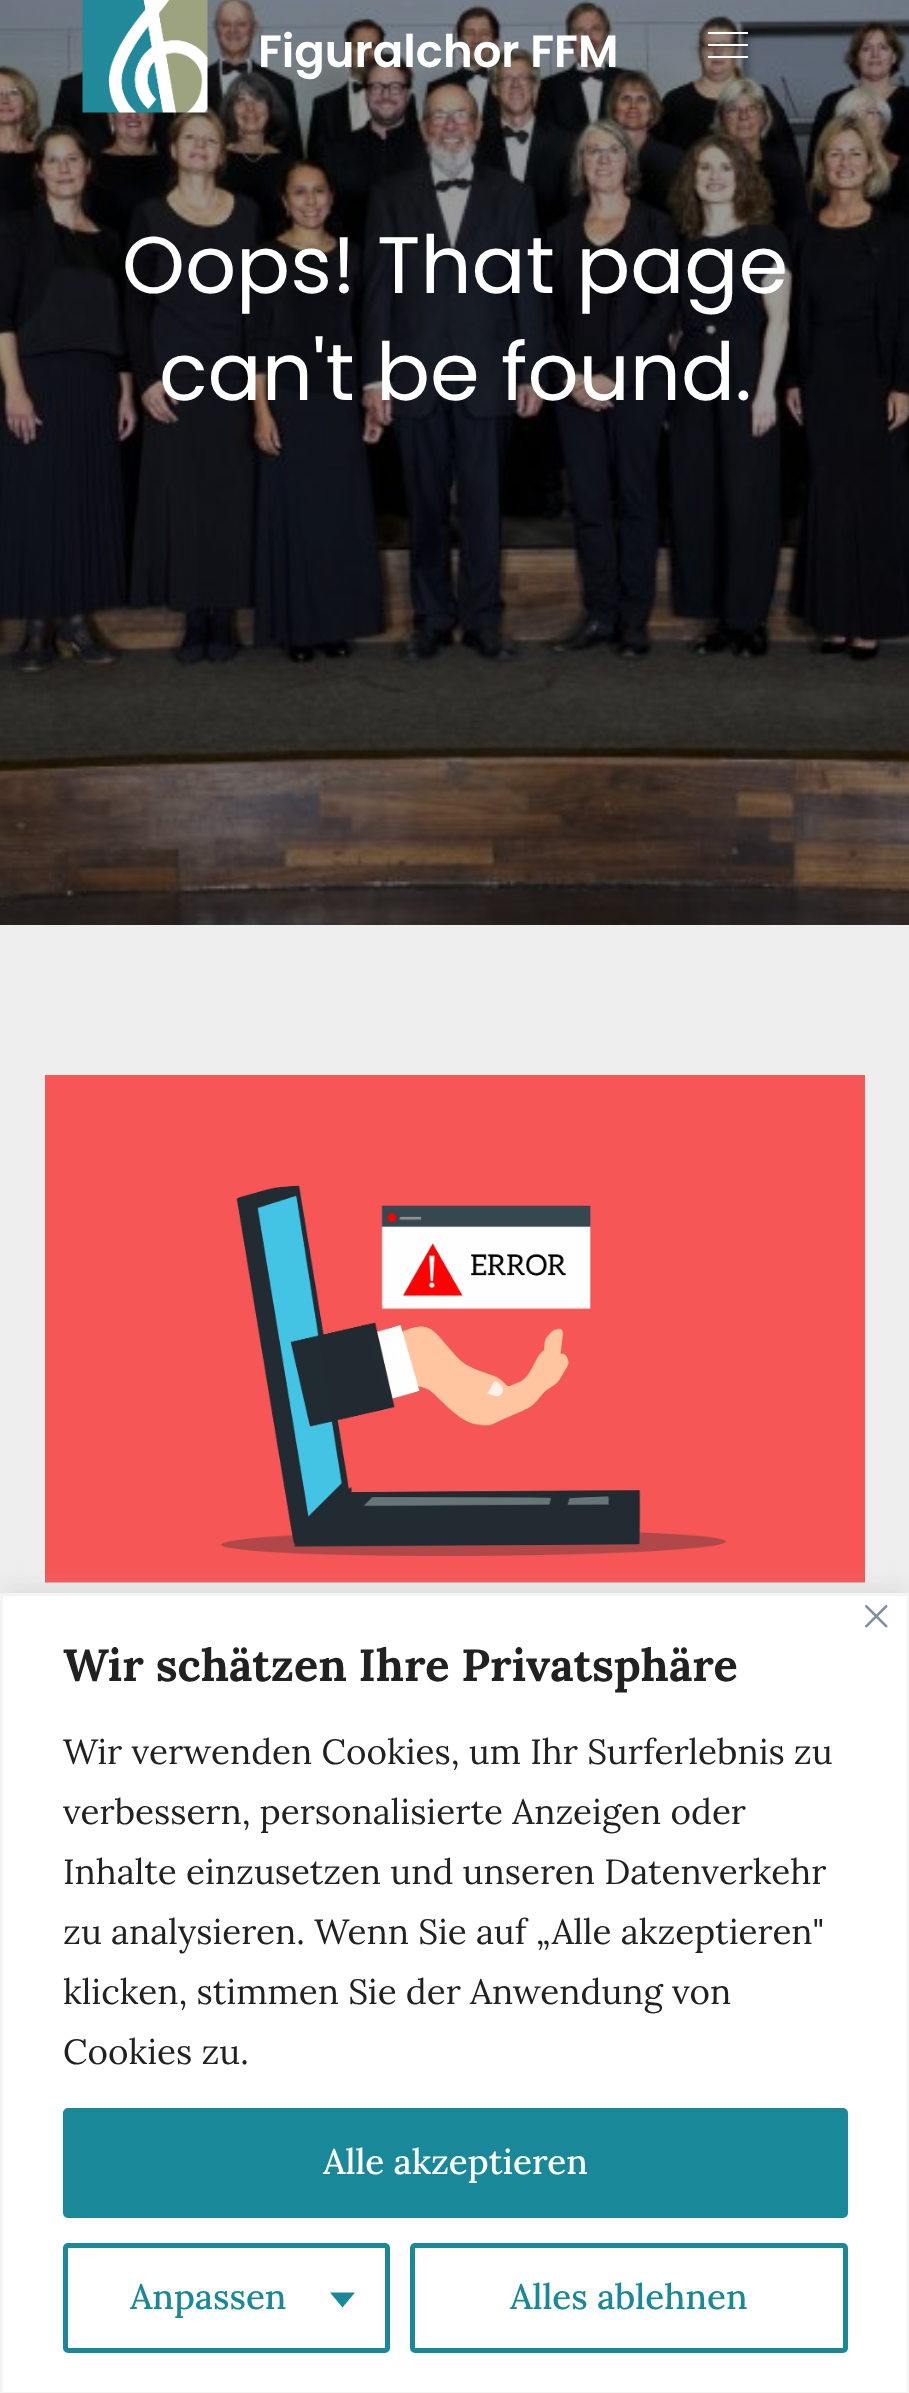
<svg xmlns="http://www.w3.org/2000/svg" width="909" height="2393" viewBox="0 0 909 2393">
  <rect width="100%" height="100%" fill="rgb(238,238,238)"/>
  <image x="0" y="0" width="909" height="925" href="pic2.png"/>
  <image x="82" y="0" width="126" height="113" href="pic1.png"/>
  <text x="258" y="67" font-family="Poppins" font-size="45" font-weight="600" fill="rgb(255,255,255)">Figuralchor FFM</text>
  <rect x="708" y="32" width="40" height="2" fill="rgb(255,255,255)"/>
  <rect x="708" y="44" width="40" height="2" fill="rgb(255,255,255)"/>
  <rect x="708" y="56" width="40" height="2" fill="rgb(255,255,255)"/>
  <g font-family="Poppins" font-size="80" fill="rgb(255,255,255)">
    <text x="122" y="293">Oops! That page</text>
    <text x="159" y="400">can't be found.</text>
  </g>
  <image x="45" y="1075" width="820" height="508" href="pic3.png"/>
  <rect x="0" y="1590" width="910" height="803" fill="rgba(172,171,171,0.3)" filter="blur(12.5px)"/>
  <rect x="1.5" y="1594.5" width="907" height="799" fill="rgb(255,255,255)" stroke="rgb(244,244,244)" stroke-width="3"/>
  <image x="865" y="1605" width="23" height="23" href="pic4.png"/>
  <text x="63" y="1681" font-family="Lora" font-size="45" font-weight="bold" fill="rgb(33,33,33)">Wir schätzen Ihre Privatsphäre</text>
  <g font-family="Lora" font-size="35" fill="rgb(33,33,33)">
    <text>
      <tspan x="63" y="1764">Wir verwenden Cookies, um Ihr Surferlebnis zu</tspan>
      <tspan x="63" y="1824">verbessern, personalisierte Anzeigen oder</tspan>
      <tspan x="63" y="1884">Inhalte einzusetzen und unseren Datenverkehr</tspan>
      <tspan x="63" y="1944">zu analysieren. Wenn Sie auf „Alle akzeptieren"</tspan>
      <tspan x="63" y="2004">klicken, stimmen Sie der Anwendung von</tspan>
      <tspan x="63" y="2064">Cookies zu.</tspan>
    </text>
  </g>
  <rect x="65.5" y="2110.5" width="780" height="105" rx="2.5" fill="rgb(25,137,153)" stroke="rgb(25,137,153)" stroke-width="5"/>
  <text x="323" y="2174" font-family="Lora" font-size="35" font-weight="500" fill="rgb(255,255,255)">Alle akzeptieren</text>
  <rect x="65.5" y="2245.5" width="322" height="105" rx="2.5" fill="none" stroke="rgb(25,137,153)" stroke-width="5"/>
  <text x="130" y="2309" font-family="Lora" font-size="35" font-weight="500" fill="rgb(25,137,153)">Anpassen</text>
  <path d="M330 2292.5H355L342.5 2307.5Z" fill="rgb(25,137,153)"/>
  <rect x="412.5" y="2245.5" width="433" height="105" rx="2.5" fill="none" stroke="rgb(25,137,153)" stroke-width="5"/>
  <text x="510" y="2309" font-family="Lora" font-size="35" font-weight="500" fill="rgb(25,137,153)">Alles ablehnen</text>
</svg>
